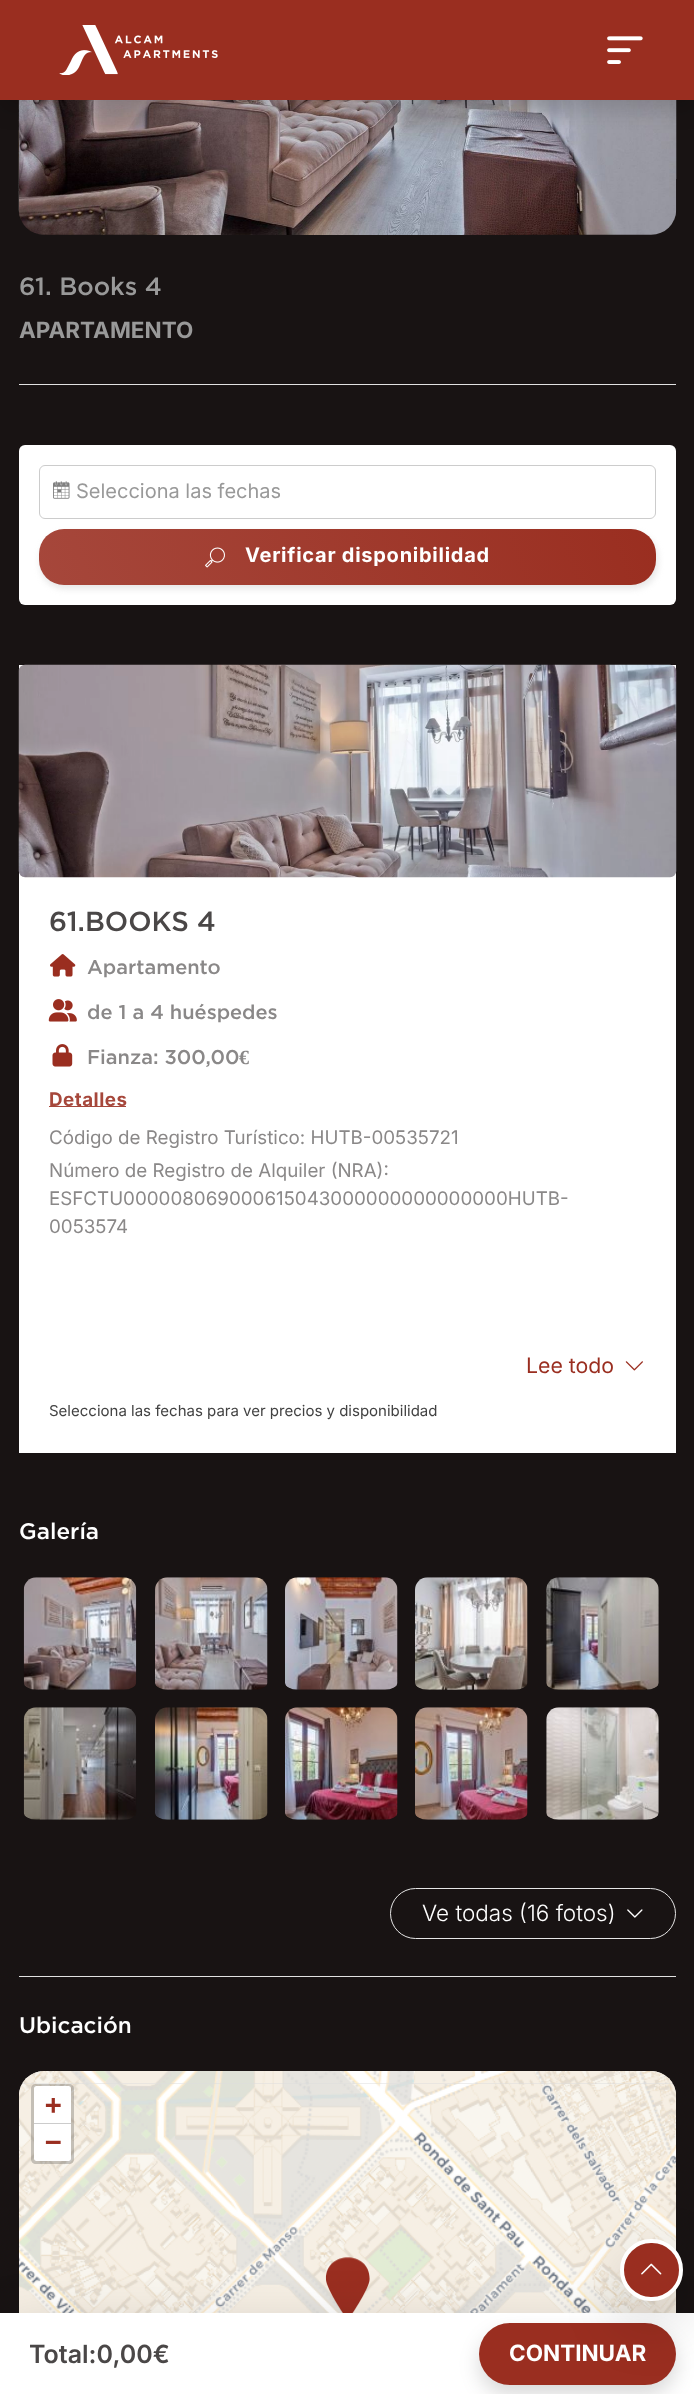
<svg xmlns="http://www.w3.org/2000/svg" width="694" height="2394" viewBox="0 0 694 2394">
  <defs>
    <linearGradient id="g1" gradientUnits="userSpaceOnUse" x1="629" y1="454" x2="66" y2="659"><stop offset="0" stop-color="rgb(154,46,32)"/><stop offset="1" stop-color="rgb(166,71,59)"/></linearGradient>
  </defs>
  <rect width="100%" height="100%" fill="rgb(24,19,19)"/>
  <image x="18" y="100" width="2" height="117" href="pic3.png"/>
  <image x="19" y="100" width="658" height="135" href="pic4.png"/>
  <rect x="0" y="10" width="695" height="100" fill="rgba(0,0,0,0.15)" filter="blur(10px)"/>
  <rect x="0" y="0" width="694" height="100" fill="rgb(154,46,32)"/>
  <image x="59" y="25" width="159" height="50" href="pic1.png"/>
  <image x="607" y="36" width="36" height="28" href="pic2.png"/>
  <rect x="19" y="384" width="657" height="1" fill="rgb(225,225,225)"/>
  <text x="19" y="295" font-family="Gotham" font-size="25" font-weight="500" fill="rgb(153,153,153)">61. Books 4</text>
  <text x="19" y="338" font-family="Inter" font-size="22.5" font-weight="bold" fill="rgb(153,153,153)">APARTAMENTO</text>
  <rect x="19" y="445" width="657" height="160" rx="6" fill="rgb(255,255,255)"/>
  <rect x="39.5" y="465.5" width="616" height="53" rx="5.5" fill="none" stroke="rgb(204,204,204)"/>
  <image x="53" y="481" width="17" height="18" href="pic5.png"/>
  <text x="76" y="498" font-family="Inter" font-size="20" fill="rgb(153,153,153)">Selecciona las fechas</text>
  <rect x="40" y="533" width="618" height="56" rx="25" fill="rgba(175,175,175,0.3)" filter="blur(3px)"/>
  <rect x="39" y="529" width="617" height="56" rx="25" fill="url(#g1)"/>
  <image x="205" y="547" width="20" height="21" href="pic6.png"/>
  <text x="245" y="562" font-family="Inter" font-size="20" font-weight="bold" letter-spacing="0.75" fill="rgb(255,255,255)">Verificar disponibilidad</text>
  <rect x="19" y="665" width="657" height="788" fill="rgb(255,255,255)"/>
  <image x="18" y="664" width="659" height="214" href="pic7.png"/>
  <text x="49" y="931" font-family="Gotham" font-size="27.5" font-weight="500" fill="rgb(74,71,71)">61.BOOKS 4</text>
  <image x="50" y="954" width="26" height="23" href="pic8.png"/>
  <text x="87" y="974" font-family="Gotham" font-size="20" font-weight="500" fill="rgb(138,136,136)">Apartamento</text>
  <image x="48" y="999" width="29" height="23" href="pic9.png"/>
  <text x="87" y="1019" font-family="Gotham" font-size="20" font-weight="500" fill="rgb(138,136,136)">de 1 a 4 huéspedes</text>
  <image x="52" y="1044" width="21" height="23" href="pic10.png"/>
  <text x="87" y="1064" font-family="Gotham" font-size="20" font-weight="500" fill="rgb(138,136,136)">Fianza: 300,00</text>
  <text x="239" y="1064" font-family="Liberation Serif" font-size="20" font-weight="bold" fill="rgb(138,136,136)">€</text>
  <rect x="49" y="1106" width="77" height="1" fill="rgb(166,71,59)"/>
  <text x="49" y="1106" font-family="Inter" font-size="18.75" font-weight="bold" letter-spacing="0.5" fill="rgb(166,71,59)">Detalles</text>
  <g font-family="Inter" font-size="18.75" fill="rgb(138,136,136)">
    <text>
      <tspan x="49" y="1144">Código de Registro Turístico: HUTB-00535721</tspan>
      <tspan x="49" y="1177">Número de Registro de Alquiler (NRA):</tspan>
      <tspan x="49" y="1205">ESFCTU000008069000615043000000000000000HUTB-</tspan>
      <tspan x="49" y="1233">0053574</tspan>
    </text>
  </g>
  <text x="526" y="1373" font-family="Inter" font-size="21.25" fill="rgb(154,46,32)">Lee todo</text>
  <image x="625" y="1361" width="18" height="10" href="pic11.png"/>
  <text x="49" y="1416" font-family="Inter" font-size="15" fill="rgb(66,66,66)">Selecciona las fechas para ver precios y disponibilidad</text>
  <rect x="19" y="1976" width="657" height="1" fill="rgb(225,225,225)"/>
  <text x="19" y="1539" font-family="Gotham" font-size="22.5" font-weight="500" fill="rgb(255,255,255)">Galería</text>
  <image x="23" y="1577" width="114" height="113" href="pic12.png"/>
  <image x="155" y="1577" width="113" height="113" href="pic13.png"/>
  <image x="285" y="1577" width="113" height="113" href="pic14.png"/>
  <image x="415" y="1577" width="113" height="113" href="pic15.png"/>
  <image x="546" y="1577" width="113" height="113" href="pic16.png"/>
  <image x="23" y="1707" width="114" height="113" href="pic17.png"/>
  <image x="155" y="1707" width="113" height="113" href="pic18.png"/>
  <image x="285" y="1707" width="113" height="113" href="pic19.png"/>
  <image x="415" y="1707" width="113" height="113" href="pic20.png"/>
  <image x="546" y="1707" width="113" height="113" href="pic21.png"/>
  <rect x="390.5" y="1888.5" width="285" height="50" rx="25" fill="none" stroke="rgb(230,230,230)"/>
  <text x="422" y="1921" font-family="Inter" font-size="22.5" font-weight="300" fill="rgb(255,255,255)">Ve todas (16 fotos)</text>
  <image x="627" y="1909" width="16" height="9" href="pic22.png"/>
  <text x="19" y="2033" font-family="Gotham" font-size="22.5" font-weight="500" fill="rgb(255,255,255)">Ubicación</text>
  <rect x="19" y="2071" width="657" height="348" rx="25" fill="rgb(221,221,221)"/>
  <image x="22" y="2071" width="189" height="13" href="pic23.png"/>
  <image x="211" y="2071" width="320" height="13" href="pic24.png"/>
  <image x="531" y="2071" width="142" height="13" href="pic25.png"/>
  <image x="19" y="2084" width="192" height="229" href="pic26.png"/>
  <image x="211" y="2084" width="320" height="229" href="pic27.png"/>
  <image x="531" y="2084" width="145" height="229" href="pic28.png"/>
  <image x="325" y="2257" width="45" height="56" href="pic29.png"/>
  <path d="M36 2084H69C72 2084 74 2086 74 2089V2159C74 2162 72 2164 69 2164H36C33 2164 31 2162 31 2159V2089C31 2086 33 2084 36 2084Z" fill="rgba(0,0,0,0.2)"/>
  <path d="M36.5 2086H68.5C70 2086 71 2087 71 2088.5V2124H34V2088.5C34 2087 35 2086 36.5 2086Z" fill="rgb(255,255,255)"/>
  <rect x="34" y="2123" width="37" height="1" fill="rgb(204,204,204)"/>
  <text x="45" y="2114" font-family="DejaVu Sans Mono" font-size="27.5" font-weight="bold" fill="rgb(154,46,32)">+</text>
  <path d="M34 2124H71V2158.5C71 2160 70 2161 68.5 2161H36.5C35 2161 34 2160 34 2158.5Z" fill="rgb(255,255,255)"/>
  <text x="45" y="2151" font-family="DejaVu Sans Mono" font-size="27.5" font-weight="bold" fill="rgb(154,46,32)">−</text>
  <rect x="0" y="2333" width="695" height="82" fill="rgba(0,0,0,0.18)" filter="blur(30px)"/>
  <rect x="0" y="2313" width="694" height="81" fill="rgb(255,255,255)"/>
  <text x="29" y="2363" font-family="Inter" font-size="25" font-weight="600" fill="rgb(74,71,71)">Total:0,00€</text>
  <rect x="479" y="2333" width="197" height="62" rx="31" fill="rgba(0,0,0,0.15)" filter="blur(10px)"/>
  <rect x="479" y="2323" width="197" height="62" rx="31" fill="rgb(154,46,32)"/>
  <text x="509" y="2361" font-family="Inter" font-size="22.5" font-weight="bold" fill="rgb(255,255,255)">CONTINUAR</text>
  <rect x="620" y="2259" width="63" height="62" rx="31" fill="rgba(0,0,0,0.18)" filter="blur(30px)"/>
  <rect x="622" y="2241" width="59" height="58" rx="29" fill="rgb(154,46,32)" stroke="rgb(255,255,255)" stroke-width="4"/>
  <image x="641" y="2263" width="21" height="12" href="pic30.png"/>
</svg>
